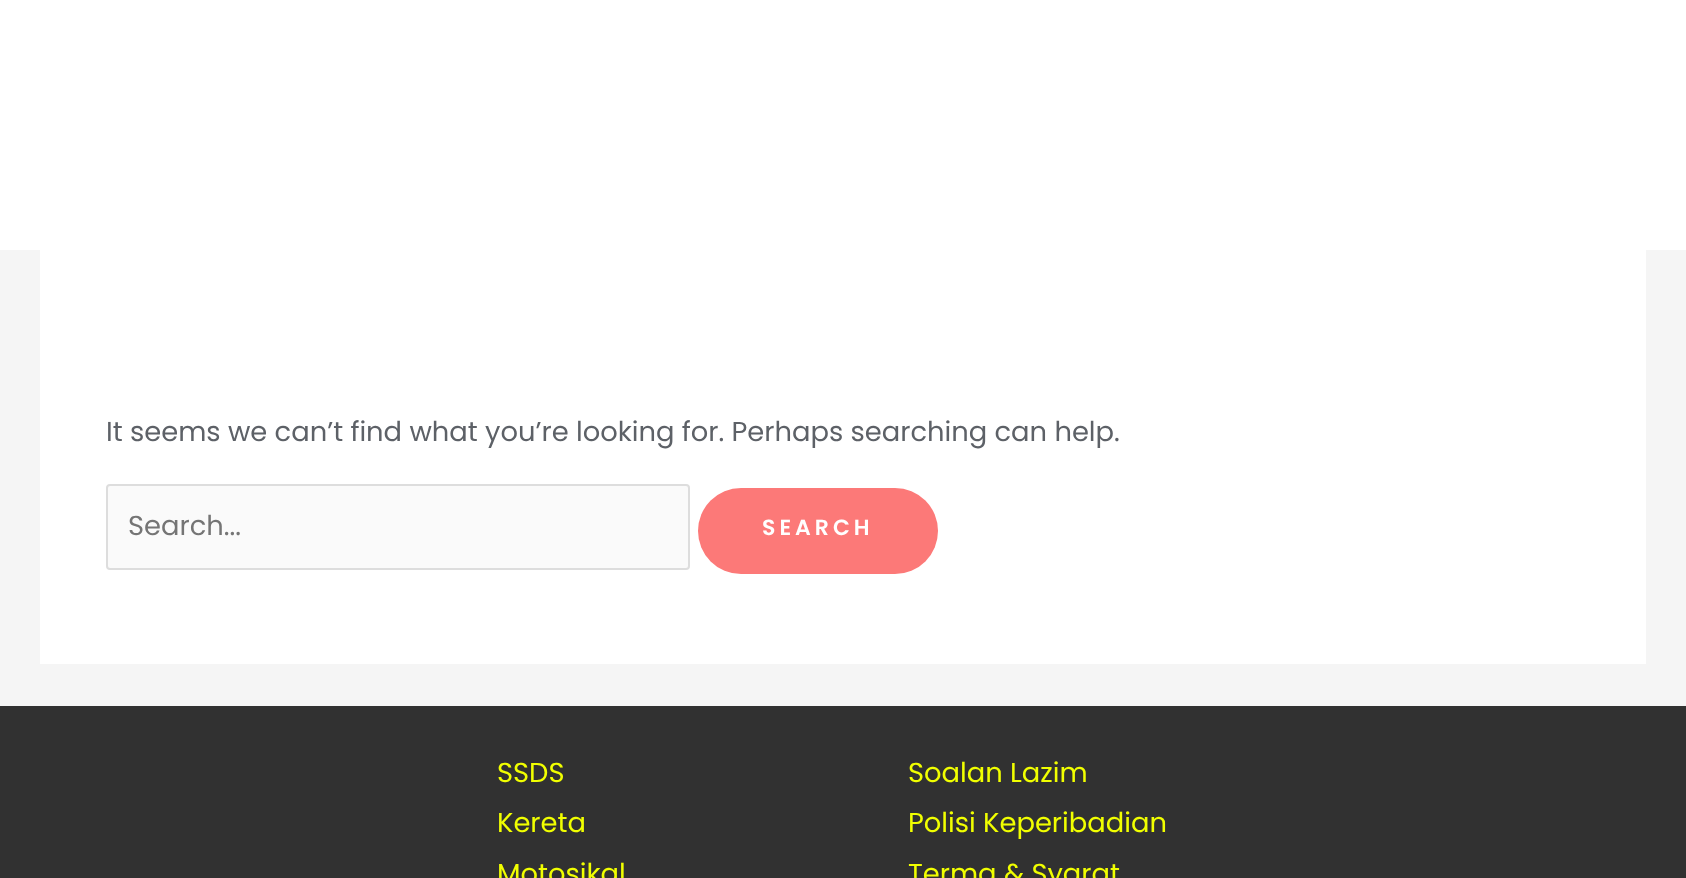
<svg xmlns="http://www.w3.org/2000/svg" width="1686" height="878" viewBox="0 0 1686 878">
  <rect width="100%" height="100%" fill="rgb(245,245,245)"/>
  <rect x="0" y="0" width="1686" height="250" fill="rgb(255,255,255)"/>
  <rect x="40" y="250" width="1606" height="414" fill="rgb(255,255,255)"/>
  <text x="106" y="441" font-family="Poppins" font-size="27.35" fill="rgb(93,97,103)">It seems we can’t find what you’re looking for. Perhaps searching can help.</text>
  <rect x="107" y="485" width="582" height="84" rx="3" fill="rgb(250,250,250)" stroke="rgb(221,221,221)" stroke-width="2"/>
  <text x="128" y="535" font-family="Poppins" font-size="27.35" fill="rgb(117,117,117)">Search...</text>
  <rect x="698" y="488" width="240" height="86" rx="43" fill="rgb(252,121,120)"/>
  <text x="762" y="535" font-family="Poppins" font-size="22" font-weight="600" letter-spacing="4" fill="rgb(255,255,255)">SEARCH</text>
  <rect x="0" y="706" width="1686" height="172" fill="rgb(49,49,49)"/>
  <g font-family="Poppins" font-size="27.35" fill="rgb(241,255,0)">
    <text>
      <tspan x="497" y="782">SSDS</tspan>
      <tspan x="497" y="832">Kereta</tspan>
      <tspan x="497" y="883">Motosikal</tspan>
    </text>
    <text>
      <tspan x="908" y="782">Soalan Lazim</tspan>
      <tspan x="908" y="832">Polisi Keperibadian</tspan>
      <tspan x="908" y="883">Terma &amp; Syarat</tspan>
    </text>
  </g>
</svg>
